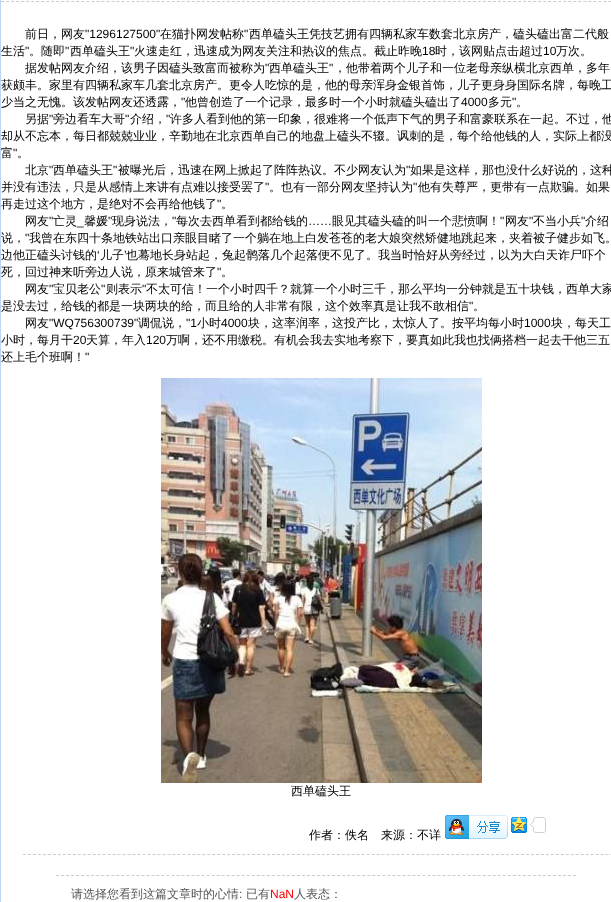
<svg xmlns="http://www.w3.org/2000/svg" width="611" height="902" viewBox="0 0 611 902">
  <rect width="100%" height="100%" fill="rgb(255,255,255)"/>
  <rect x="0.5" y="-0.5" width="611" height="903" fill="none" stroke="rgb(189,215,242)"/>
  <path d="M1 1.5H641" fill="none" stroke="rgb(204,204,204)" stroke-dasharray="3 2.02"/>
  <text x="25" y="38" font-family="WenQuanYi Zen Hei" font-size="12" font-weight="500" fill="rgb(0,0,0)">前日，网友</text>
  <text x="85" y="38" font-family="Liberation Sans" font-size="12" fill="rgb(0,0,0)">"1296127500"</text>
  <text x="160" y="38" font-family="WenQuanYi Zen Hei" font-size="12" font-weight="500" fill="rgb(0,0,0)">在猫扑网发帖称</text>
  <text x="244" y="38" font-family="Liberation Sans" font-size="12" fill="rgb(0,0,0)">"</text>
  <g font-family="WenQuanYi Zen Hei" font-size="12" font-weight="500" fill="rgb(0,0,0)">
    <text x="249" y="38">西单磕头王凭技艺拥有四辆私家车数套北京房产，磕头磕出富二代般</text>
    <text x="1" y="55">生活</text>
  </g>
  <text x="25" y="55" font-family="Liberation Sans" font-size="12" fill="rgb(0,0,0)">"</text>
  <text x="29" y="55" font-family="WenQuanYi Zen Hei" font-size="12" font-weight="500" fill="rgb(0,0,0)">。随即</text>
  <text x="65" y="55" font-family="Liberation Sans" font-size="12" fill="rgb(0,0,0)">"</text>
  <text x="70" y="55" font-family="WenQuanYi Zen Hei" font-size="12" font-weight="500" fill="rgb(0,0,0)">西单磕头王</text>
  <text x="130" y="55" font-family="Liberation Sans" font-size="12" fill="rgb(0,0,0)">"</text>
  <text x="134" y="55" font-family="WenQuanYi Zen Hei" font-size="12" font-weight="500" fill="rgb(0,0,0)">火速走红，迅速成为网友关注和热议的焦点。截止昨晚</text>
  <text x="422" y="55" font-family="Liberation Sans" font-size="12" fill="rgb(0,0,0)">18</text>
  <text x="435" y="55" font-family="WenQuanYi Zen Hei" font-size="12" font-weight="500" fill="rgb(0,0,0)">时，该网贴点击超过</text>
  <text x="543" y="55" font-family="Liberation Sans" font-size="12" fill="rgb(0,0,0)">10</text>
  <g font-family="WenQuanYi Zen Hei" font-size="12" font-weight="500" fill="rgb(0,0,0)">
    <text x="556" y="55">万次。</text>
    <text x="25" y="72">据发帖网友介绍，该男子因磕头致富而被称为</text>
  </g>
  <text x="265" y="72" font-family="Liberation Sans" font-size="12" fill="rgb(0,0,0)">"</text>
  <text x="269" y="72" font-family="WenQuanYi Zen Hei" font-size="12" font-weight="500" fill="rgb(0,0,0)">西单磕头王</text>
  <text x="329" y="72" font-family="Liberation Sans" font-size="12" fill="rgb(0,0,0)">"</text>
  <g font-family="WenQuanYi Zen Hei" font-size="12" font-weight="500" fill="rgb(0,0,0)">
    <text x="334" y="72">，他带着两个儿子和一位老母亲纵横北京西单，多年</text>
    <text>
      <tspan x="1" y="89">获颇丰。家里有四辆私家车几套北京房产。更令人吃惊的是，他的母亲浑身金银首饰，儿子更身身国际名牌，每晚工</tspan>
      <tspan x="1" y="106">少当之无愧。该发帖网友还透露，</tspan>
    </text>
  </g>
  <text x="181" y="106" font-family="Liberation Sans" font-size="12" fill="rgb(0,0,0)">"</text>
  <text x="185" y="106" font-family="WenQuanYi Zen Hei" font-size="12" font-weight="500" fill="rgb(0,0,0)">他曾创造了一个记录，最多时一个小时就磕头磕出了</text>
  <text x="461" y="106" font-family="Liberation Sans" font-size="12" fill="rgb(0,0,0)">4000</text>
  <text x="488" y="106" font-family="WenQuanYi Zen Hei" font-size="12" font-weight="500" fill="rgb(0,0,0)">多元</text>
  <text x="512" y="106" font-family="Liberation Sans" font-size="12" fill="rgb(0,0,0)">"</text>
  <g font-family="WenQuanYi Zen Hei" font-size="12" font-weight="500" fill="rgb(0,0,0)">
    <text x="516" y="106">。</text>
    <text x="25" y="123">另据</text>
  </g>
  <text x="49" y="123" font-family="Liberation Sans" font-size="12" fill="rgb(0,0,0)">"</text>
  <text x="53" y="123" font-family="WenQuanYi Zen Hei" font-size="12" font-weight="500" fill="rgb(0,0,0)">旁边看车大哥</text>
  <text x="125" y="123" font-family="Liberation Sans" font-size="12" fill="rgb(0,0,0)">"</text>
  <text x="130" y="123" font-family="WenQuanYi Zen Hei" font-size="12" font-weight="500" fill="rgb(0,0,0)">介绍，</text>
  <text x="166" y="123" font-family="Liberation Sans" font-size="12" fill="rgb(0,0,0)">"</text>
  <g font-family="WenQuanYi Zen Hei" font-size="12" font-weight="500" fill="rgb(0,0,0)">
    <text x="170" y="123">许多人看到他的第一印象，很难将一个低声下气的男子和富豪联系在一起。不过，他</text>
    <text>
      <tspan x="1" y="140">却从不忘本，每日都兢兢业业，辛勤地在北京西单自己的地盘上磕头不辍。讽刺的是，每个给他钱的人，实际上都没</tspan>
      <tspan x="1" y="157">富</tspan>
    </text>
  </g>
  <text x="13" y="157" font-family="Liberation Sans" font-size="12" fill="rgb(0,0,0)">"</text>
  <g font-family="WenQuanYi Zen Hei" font-size="12" font-weight="500" fill="rgb(0,0,0)">
    <text x="17" y="157">。</text>
    <text x="25" y="174">北京</text>
  </g>
  <text x="49" y="174" font-family="Liberation Sans" font-size="12" fill="rgb(0,0,0)">"</text>
  <text x="53" y="174" font-family="WenQuanYi Zen Hei" font-size="12" font-weight="500" fill="rgb(0,0,0)">西单磕头王</text>
  <text x="113" y="174" font-family="Liberation Sans" font-size="12" fill="rgb(0,0,0)">"</text>
  <text x="118" y="174" font-family="WenQuanYi Zen Hei" font-size="12" font-weight="500" fill="rgb(0,0,0)">被曝光后，迅速在网上掀起了阵阵热议。不少网友认为</text>
  <text x="406" y="174" font-family="Liberation Sans" font-size="12" fill="rgb(0,0,0)">"</text>
  <g font-family="WenQuanYi Zen Hei" font-size="12" font-weight="500" fill="rgb(0,0,0)">
    <text x="410" y="174">如果是这样，那也没什么好说的，这种</text>
    <text x="1" y="191">并没有违法，只是从感情上来讲有点难以接受罢了</text>
  </g>
  <text x="265" y="191" font-family="Liberation Sans" font-size="12" fill="rgb(0,0,0)">"</text>
  <text x="269" y="191" font-family="WenQuanYi Zen Hei" font-size="12" font-weight="500" fill="rgb(0,0,0)">。也有一部分网友坚持认为</text>
  <text x="413" y="191" font-family="Liberation Sans" font-size="12" fill="rgb(0,0,0)">"</text>
  <g font-family="WenQuanYi Zen Hei" font-size="12" font-weight="500" fill="rgb(0,0,0)">
    <text x="418" y="191">他有失尊严，更带有一点欺骗。如果</text>
    <text x="1" y="208">再走过这个地方，是绝对不会再给他钱了</text>
  </g>
  <text x="217" y="208" font-family="Liberation Sans" font-size="12" fill="rgb(0,0,0)">"</text>
  <g font-family="WenQuanYi Zen Hei" font-size="12" font-weight="500" fill="rgb(0,0,0)">
    <text x="221" y="208">。</text>
    <text x="25" y="225">网友</text>
  </g>
  <text x="49" y="225" font-family="Liberation Sans" font-size="12" fill="rgb(0,0,0)">"</text>
  <text x="53" y="225" font-family="WenQuanYi Zen Hei" font-size="12" font-weight="500" fill="rgb(0,0,0)">亡灵</text>
  <text x="77" y="225" font-family="Liberation Sans" font-size="12" fill="rgb(0,0,0)">_</text>
  <text x="84" y="225" font-family="WenQuanYi Zen Hei" font-size="12" font-weight="500" fill="rgb(0,0,0)">馨媛</text>
  <text x="108" y="225" font-family="Liberation Sans" font-size="12" fill="rgb(0,0,0)">"</text>
  <text x="112" y="225" font-family="WenQuanYi Zen Hei" font-size="12" font-weight="500" fill="rgb(0,0,0)">现身说法，</text>
  <text x="172" y="225" font-family="Liberation Sans" font-size="12" fill="rgb(0,0,0)">"</text>
  <g font-family="WenQuanYi Zen Hei" font-size="12" font-weight="500" fill="rgb(0,0,0)">
    <text x="176" y="225">每次去西单看到都给钱的</text>
    <text x="332" y="225">眼见其磕头磕的叫一个悲愤啊！</text>
  </g>
  <text x="500" y="225" font-family="Liberation Sans" font-size="12" fill="rgb(0,0,0)">"</text>
  <text x="505" y="225" font-family="WenQuanYi Zen Hei" font-size="12" font-weight="500" fill="rgb(0,0,0)">网友</text>
  <text x="529" y="225" font-family="Liberation Sans" font-size="12" fill="rgb(0,0,0)">"</text>
  <text x="533" y="225" font-family="WenQuanYi Zen Hei" font-size="12" font-weight="500" fill="rgb(0,0,0)">不当小兵</text>
  <text x="581" y="225" font-family="Liberation Sans" font-size="12" fill="rgb(0,0,0)">"</text>
  <text x="585" y="225" font-family="WenQuanYi Zen Hei" font-size="12" font-weight="500" fill="rgb(0,0,0)">介绍</text>
  <text x="308" y="225" font-family="Liberation Sans" font-size="12" fill="rgb(0,0,0)">……</text>
  <text x="1" y="242" font-family="WenQuanYi Zen Hei" font-size="12" font-weight="500" fill="rgb(0,0,0)">说，</text>
  <text x="25" y="242" font-family="Liberation Sans" font-size="12" fill="rgb(0,0,0)">"</text>
  <g font-family="WenQuanYi Zen Hei" font-size="12" font-weight="500" fill="rgb(0,0,0)">
    <text x="29" y="242">我曾在东四十条地铁站出口亲眼目睹了一个躺在地上白发苍苍的老大娘突然矫健地跳起来，夹着被子健步如飞。</text>
    <text x="1" y="259">边他正磕头讨钱的</text>
  </g>
  <text x="97" y="259" font-family="Liberation Sans" font-size="12" fill="rgb(0,0,0)">‘</text>
  <text x="100" y="259" font-family="WenQuanYi Zen Hei" font-size="12" font-weight="500" fill="rgb(0,0,0)">儿子</text>
  <text x="124" y="259" font-family="Liberation Sans" font-size="12" fill="rgb(0,0,0)">’</text>
  <g font-family="WenQuanYi Zen Hei" font-size="12" font-weight="500" fill="rgb(0,0,0)">
    <text x="126" y="259">也蓦地长身站起，兔起鹘落几个起落便不见了。我当时恰好从旁经过，以为大白天诈尸吓个</text>
    <text x="1" y="276">死，回过神来听旁边人说，原来城管来了</text>
  </g>
  <text x="217" y="276" font-family="Liberation Sans" font-size="12" fill="rgb(0,0,0)">"</text>
  <g font-family="WenQuanYi Zen Hei" font-size="12" font-weight="500" fill="rgb(0,0,0)">
    <text x="221" y="276">。</text>
    <text x="25" y="293">网友</text>
  </g>
  <text x="49" y="293" font-family="Liberation Sans" font-size="12" fill="rgb(0,0,0)">"</text>
  <text x="53" y="293" font-family="WenQuanYi Zen Hei" font-size="12" font-weight="500" fill="rgb(0,0,0)">宝贝老公</text>
  <text x="101" y="293" font-family="Liberation Sans" font-size="12" fill="rgb(0,0,0)">"</text>
  <text x="106" y="293" font-family="WenQuanYi Zen Hei" font-size="12" font-weight="500" fill="rgb(0,0,0)">则表示</text>
  <text x="142" y="293" font-family="Liberation Sans" font-size="12" fill="rgb(0,0,0)">"</text>
  <g font-family="WenQuanYi Zen Hei" font-size="12" font-weight="500" fill="rgb(0,0,0)">
    <text x="146" y="293">不太可信！一个小时四千？就算一个小时三千，那么平均一分钟就是五十块钱，西单大家</text>
    <text x="1" y="310">是没去过，给钱的都是一块两块的给，而且给的人非常有限，这个效率真是让我不敢相信</text>
  </g>
  <text x="469" y="310" font-family="Liberation Sans" font-size="12" fill="rgb(0,0,0)">"</text>
  <g font-family="WenQuanYi Zen Hei" font-size="12" font-weight="500" fill="rgb(0,0,0)">
    <text x="473" y="310">。</text>
    <text x="25" y="327">网友</text>
  </g>
  <text x="49" y="327" font-family="Liberation Sans" font-size="12" fill="rgb(0,0,0)">"WQ756300739"</text>
  <text x="138" y="327" font-family="WenQuanYi Zen Hei" font-size="12" font-weight="500" fill="rgb(0,0,0)">调侃说，</text>
  <text x="186" y="327" font-family="Liberation Sans" font-size="12" fill="rgb(0,0,0)">"1</text>
  <text x="197" y="327" font-family="WenQuanYi Zen Hei" font-size="12" font-weight="500" fill="rgb(0,0,0)">小时</text>
  <text x="221" y="327" font-family="Liberation Sans" font-size="12" fill="rgb(0,0,0)">4000</text>
  <text x="248" y="327" font-family="WenQuanYi Zen Hei" font-size="12" font-weight="500" fill="rgb(0,0,0)">块，这率润率，这投产比，太惊人了。按平均每小时</text>
  <text x="524" y="327" font-family="Liberation Sans" font-size="12" fill="rgb(0,0,0)">1000</text>
  <g font-family="WenQuanYi Zen Hei" font-size="12" font-weight="500" fill="rgb(0,0,0)">
    <text x="551" y="327">块，每天工</text>
    <text x="1" y="344">小时，每月干</text>
  </g>
  <text x="73" y="344" font-family="Liberation Sans" font-size="12" fill="rgb(0,0,0)">20</text>
  <text x="86" y="344" font-family="WenQuanYi Zen Hei" font-size="12" font-weight="500" fill="rgb(0,0,0)">天算，年入</text>
  <text x="146" y="344" font-family="Liberation Sans" font-size="12" fill="rgb(0,0,0)">120</text>
  <g font-family="WenQuanYi Zen Hei" font-size="12" font-weight="500" fill="rgb(0,0,0)">
    <text x="166" y="344">万啊，还不用缴税。有机会我去实地考察下，要真如此我也找俩搭档一起去干他三五</text>
    <text x="1" y="361">还上毛个班啊！</text>
  </g>
  <text x="85" y="361" font-family="Liberation Sans" font-size="12" fill="rgb(0,0,0)">"</text>
  <image x="161" y="378" width="321" height="405" href="pic1.png"/>
  <text x="291" y="795" font-family="WenQuanYi Zen Hei" font-size="12" font-weight="500" fill="rgb(0,0,0)">西单磕头王</text>
  <path d="M23 854.5H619" fill="none" stroke="rgb(204,204,204)" stroke-dasharray="3 1.98"/>
  <image x="445" y="815" width="63" height="24" href="pic2.png"/>
  <image x="511" y="817" width="35" height="16" href="pic3.png"/>
  <text x="309" y="839" font-family="WenQuanYi Zen Hei" font-size="12" font-weight="500" fill="rgb(0,0,0)">作者：佚名　来源：不详</text>
  <path d="M56 875.5H576" fill="none" stroke="rgb(204,204,204)" stroke-dasharray="3 2.02"/>
  <text x="71" y="898" font-family="WenQuanYi Zen Hei" font-size="12" font-weight="500" fill="rgb(85,85,85)">请选择您看到这篇文章时的心情</text>
  <text x="239" y="898" font-family="Liberation Sans" font-size="12" fill="rgb(85,85,85)">:</text>
  <text x="246" y="898" font-family="WenQuanYi Zen Hei" font-size="12" font-weight="500" fill="rgb(85,85,85)">已有</text>
  <text x="270" y="898" font-family="Liberation Sans" font-size="12" fill="rgb(255,0,0)">NaN</text>
  <text x="294" y="898" font-family="WenQuanYi Zen Hei" font-size="12" font-weight="500" fill="rgb(85,85,85)">人表态：</text>
</svg>
